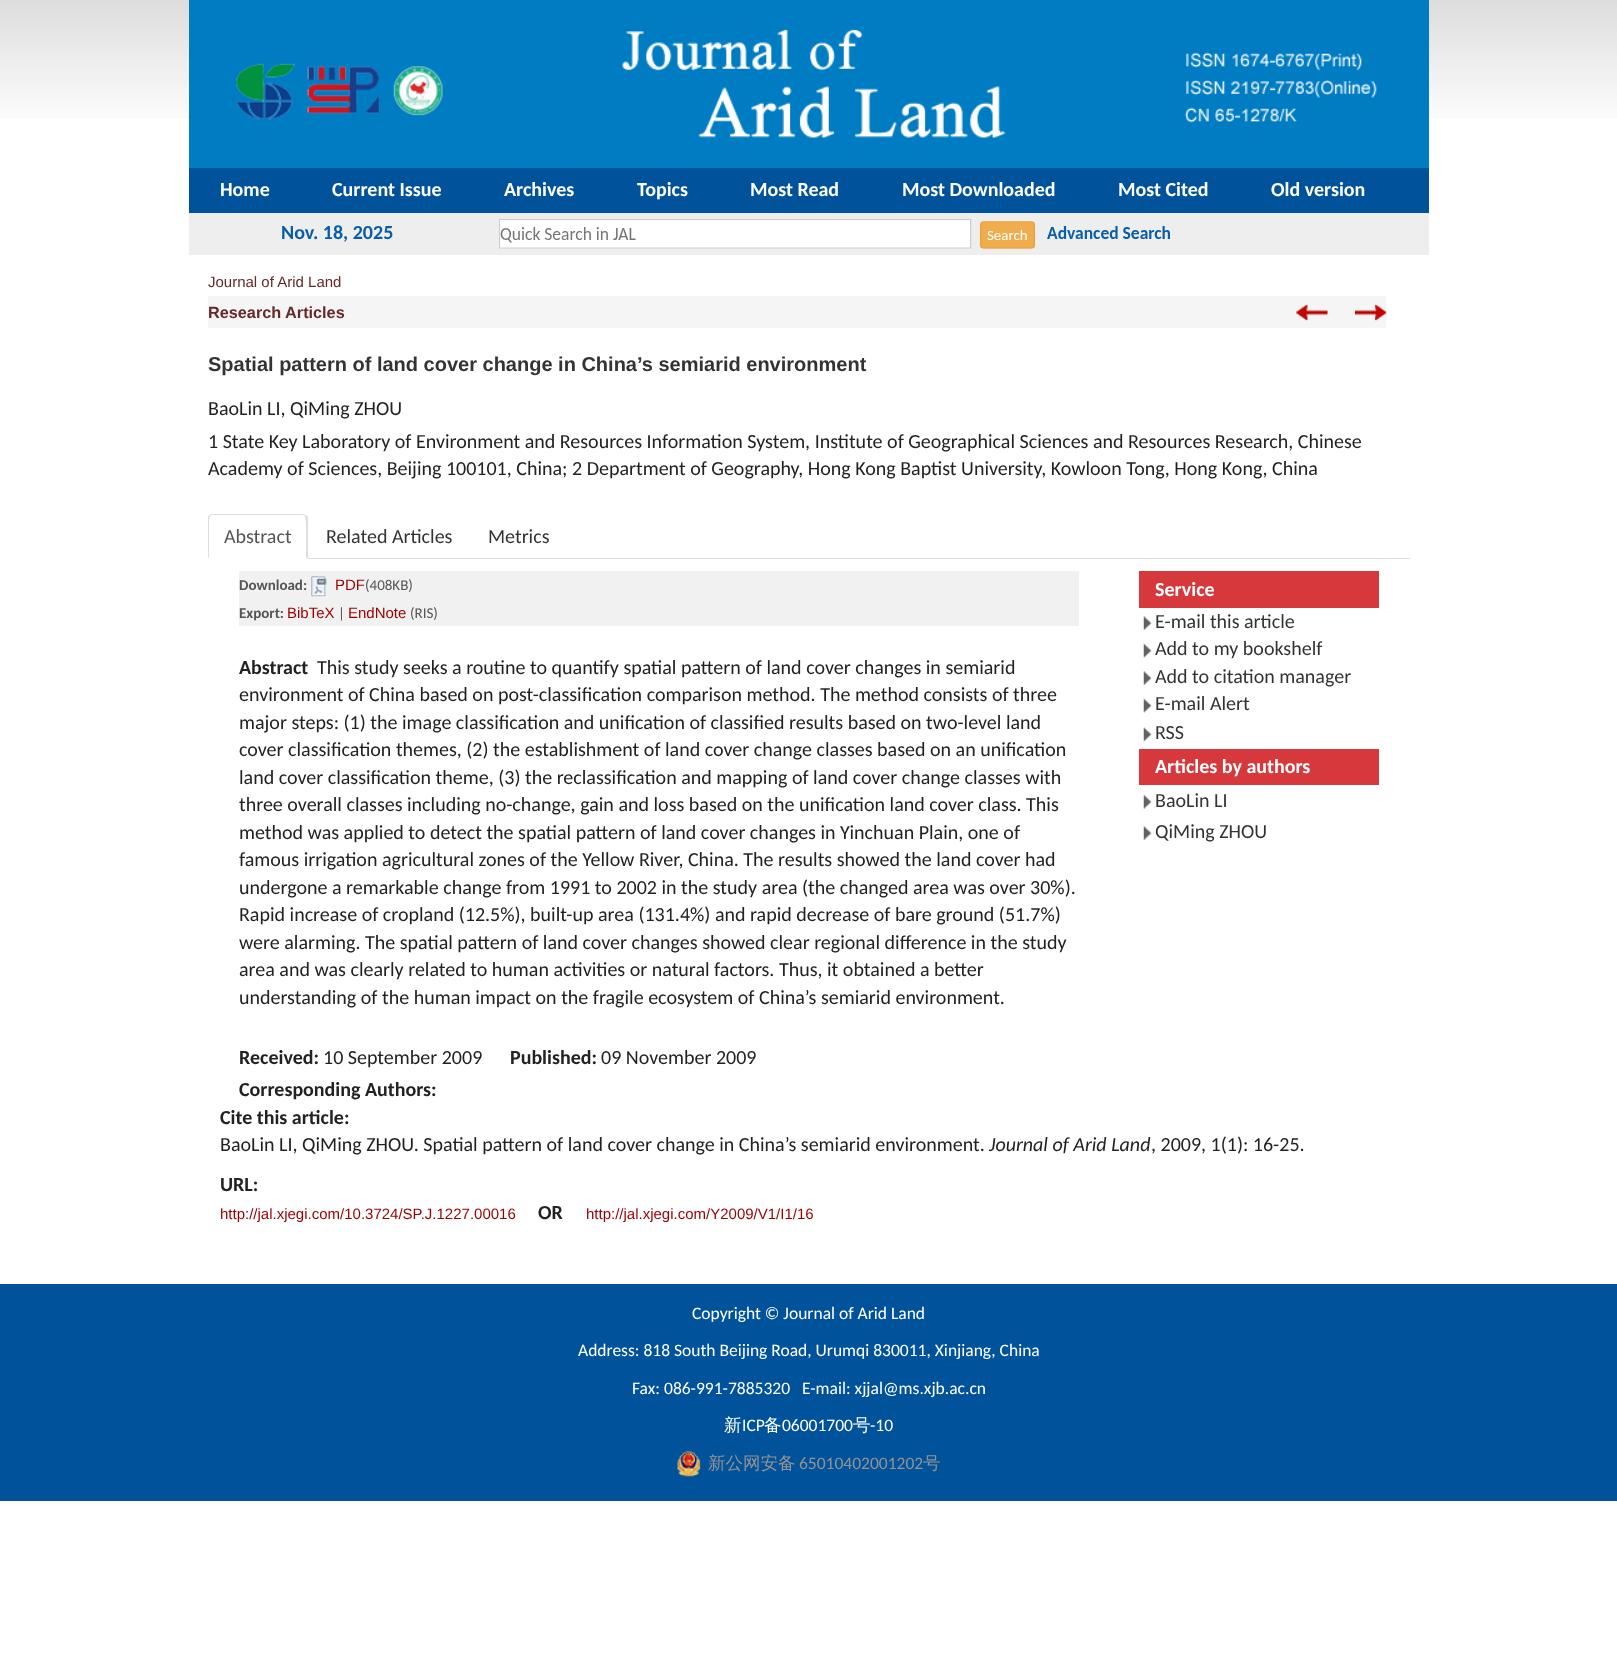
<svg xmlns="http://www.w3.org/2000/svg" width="1617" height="1656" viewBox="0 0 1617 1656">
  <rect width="100%" height="100%" fill="rgb(255,255,255)"/>
  <image x="0" y="0" width="1617" height="118" href="pic1.png"/>
  <rect x="189" y="0" width="1240" height="168" fill="rgb(0,124,195)"/>
  <image x="236" y="29" width="1141" height="109" href="pic2.png"/>
  <rect x="189" y="168" width="1240" height="45" fill="rgb(0,83,154)"/>
  <g font-family="Carlito" font-size="20" font-weight="bold" fill="rgb(255,255,255)">
    <text x="220" y="196">Home</text>
    <text x="332" y="196">Current Issue</text>
    <text x="504" y="196">Archives</text>
    <text x="637" y="196">Topics</text>
    <text x="750" y="196">Most Read</text>
    <text x="902" y="196">Most Downloaded</text>
    <text x="1118" y="196">Most Cited</text>
    <text x="1271" y="196">Old version</text>
  </g>
  <rect x="189" y="213" width="1240" height="42" fill="rgb(238,238,238)"/>
  <text x="281" y="239" font-family="Carlito" font-size="20" font-weight="bold" fill="rgb(9,94,168)">Nov. 18, 2025</text>
  <image x="499" y="219" width="671" height="30" href="pic3.png"/>
  <text x="208" y="287" font-family="Liberation Sans" font-size="15" fill="rgb(102,40,40)">Journal of Arid Land</text>
  <rect x="208" y="296" width="1178" height="32" fill="rgb(245,245,245)"/>
  <text x="208" y="318" font-family="Liberation Sans" font-size="16.25" font-weight="bold" fill="rgb(102,40,40)">Research Articles</text>
  <image x="1296" y="304" width="32" height="17" href="pic4.png"/>
  <image x="1355" y="304" width="32" height="17" href="pic5.png"/>
  <text x="208" y="371" font-family="Liberation Sans" font-size="20" font-weight="bold" fill="rgb(51,51,51)">Spatial pattern of land cover change in China’s semiarid environment</text>
  <g font-family="Carlito" font-size="20" fill="rgb(34,34,34)">
    <text>
      <tspan x="208" y="415">BaoLin LI, QiMing ZHOU</tspan>
      <tspan x="208" y="448">1 State Key Laboratory of Environment and Resources Information System, Institute of Geographical Sciences and Resources Research, Chinese</tspan>
      <tspan x="208" y="475">Academy of Sciences, Beijing 100101, China; 2 Department of Geography, Hong Kong Baptist University, Kowloon Tong, Hong Kong, China</tspan>
    </text>
  </g>
  <rect x="308" y="558" width="1102" height="1" fill="rgb(221,221,221)"/>
  <path d="M212 514C211 514 210 515 209 515L210 516L212 515H303L305 516L306 515L302 514Z" fill="rgb(221,221,221)"/>
  <path d="M306 515L308 517V559L306 557C306 552 307 519 305 516Z" fill="rgb(221,221,221)"/>
  <path d="M209 515C208 516 208 518 208 519V558L209 557V519L210 516Z" fill="rgb(221,221,221)"/>
  <text x="224" y="543" font-family="Carlito" font-size="20" fill="rgb(85,85,85)">Abstract</text>
  <g font-family="Carlito" font-size="20" fill="rgb(51,51,51)">
    <text x="326" y="543">Related Articles</text>
    <text x="488" y="543">Metrics</text>
  </g>
  <rect x="239" y="571" width="840" height="55" fill="rgb(241,241,241)"/>
  <text x="239" y="590" font-family="Carlito" font-size="15" font-weight="bold" fill="rgb(85,85,85)">Download:</text>
  <image x="311" y="576" width="16" height="21" href="pic6.png"/>
  <text x="335" y="590" font-family="Liberation Sans" font-size="15" fill="rgb(153,0,0)">PDF</text>
  <text x="365" y="590" font-family="Carlito" font-size="15" fill="rgb(85,85,85)">(408KB)</text>
  <text x="239" y="618" font-family="Carlito" font-size="15" font-weight="bold" fill="rgb(85,85,85)">Export:</text>
  <text x="287" y="618" font-family="Liberation Sans" font-size="15" fill="rgb(153,0,0)">BibTeX</text>
  <text x="338" y="618" font-family="Carlito" font-size="15" fill="rgb(85,85,85)">|</text>
  <text x="348" y="618" font-family="Liberation Sans" font-size="15" fill="rgb(153,0,0)">EndNote</text>
  <text x="410" y="618" font-family="Carlito" font-size="15" fill="rgb(85,85,85)">(RIS)</text>
  <text x="239" y="674" font-family="Carlito" font-size="20" font-weight="bold" fill="rgb(34,34,34)">Abstract</text>
  <g font-family="Carlito" font-size="20" fill="rgb(34,34,34)">
    <text x="317" y="674">This study seeks a routine to quantify spatial pattern of land cover changes in semiarid</text>
    <text>
      <tspan x="239" y="701">environment of China based on post-classification comparison method. The method consists of three</tspan>
      <tspan x="239" y="729">major steps: (1) the image classification and unification of classified results based on two-level land</tspan>
      <tspan x="239" y="756">cover classification themes, (2) the establishment of land cover change classes based on an unification</tspan>
      <tspan x="239" y="784">land cover classification theme, (3) the reclassification and mapping of land cover change classes with</tspan>
      <tspan x="239" y="811">three overall classes including no-change, gain and loss based on the unification land cover class. This</tspan>
      <tspan x="239" y="839">method was applied to detect the spatial pattern of land cover changes in Yinchuan Plain, one of</tspan>
      <tspan x="239" y="866">famous irrigation agricultural zones of the Yellow River, China. The results showed the land cover had</tspan>
      <tspan x="239" y="894">undergone a remarkable change from 1991 to 2002 in the study area (the changed area was over 30%).</tspan>
      <tspan x="239" y="921">Rapid increase of cropland (12.5%), built-up area (131.4%) and rapid decrease of bare ground (51.7%)</tspan>
      <tspan x="239" y="949">were alarming. The spatial pattern of land cover changes showed clear regional difference in the study</tspan>
      <tspan x="239" y="976">area and was clearly related to human activities or natural factors. Thus, it obtained a better</tspan>
      <tspan x="239" y="1004">understanding of the human impact on the fragile ecosystem of China’s semiarid environment.</tspan>
    </text>
  </g>
  <text x="239" y="1064" font-family="Carlito" font-size="20" font-weight="bold" fill="rgb(34,34,34)">Received:</text>
  <text x="323" y="1064" font-family="Carlito" font-size="20" fill="rgb(34,34,34)">10 September 2009</text>
  <text x="510" y="1064" font-family="Carlito" font-size="20" font-weight="bold" fill="rgb(34,34,34)">Published:</text>
  <text x="601" y="1064" font-family="Carlito" font-size="20" fill="rgb(34,34,34)">09 November 2009</text>
  <text x="239" y="1096" font-family="Carlito" font-size="20" font-weight="bold" fill="rgb(34,34,34)">Corresponding Authors:</text>
  <rect x="1139" y="571" width="240" height="37" fill="rgb(214,56,59)"/>
  <text x="1155" y="596" font-family="Carlito" font-size="20" font-weight="bold" fill="rgb(255,255,255)">Service</text>
  <image x="1143" y="616" width="9" height="14" href="pic7.png"/>
  <text x="1155" y="628" font-family="Carlito" font-size="20" fill="rgb(51,51,51)">E-mail this article</text>
  <image x="1143" y="643" width="9" height="15" href="pic8.png"/>
  <text x="1155" y="655" font-family="Carlito" font-size="20" fill="rgb(51,51,51)">Add to my bookshelf</text>
  <image x="1143" y="671" width="9" height="14" href="pic7.png"/>
  <text x="1155" y="683" font-family="Carlito" font-size="20" fill="rgb(51,51,51)">Add to citation manager</text>
  <image x="1143" y="698" width="9" height="15" href="pic8.png"/>
  <text x="1155" y="710" font-family="Carlito" font-size="20" fill="rgb(51,51,51)">E-mail Alert</text>
  <image x="1143" y="727" width="9" height="15" href="pic9.png"/>
  <text x="1155" y="739" font-family="Carlito" font-size="20" fill="rgb(51,51,51)">RSS</text>
  <rect x="1139" y="749" width="240" height="36" fill="rgb(214,56,59)"/>
  <text x="1155" y="773" font-family="Carlito" font-size="20" font-weight="bold" fill="rgb(255,255,255)">Articles by authors</text>
  <image x="1143" y="795" width="9" height="14" href="pic10.png"/>
  <text x="1155" y="807" font-family="Carlito" font-size="20" fill="rgb(51,51,51)">BaoLin LI</text>
  <image x="1143" y="826" width="9" height="14" href="pic7.png"/>
  <text x="1155" y="838" font-family="Carlito" font-size="20" fill="rgb(51,51,51)">QiMing ZHOU</text>
  <text x="220" y="1124" font-family="Carlito" font-size="20" font-weight="bold" fill="rgb(34,34,34)">Cite this article:</text>
  <text x="220" y="1151" font-family="Carlito" font-size="20" fill="rgb(34,34,34)">BaoLin LI, QiMing ZHOU. Spatial pattern of land cover change in China’s semiarid environment.</text>
  <text x="989" y="1151" font-family="Carlito" font-size="20" font-style="italic" fill="rgb(34,34,34)">Journal of Arid Land</text>
  <text x="1151" y="1151" font-family="Carlito" font-size="20" fill="rgb(34,34,34)">, 2009, 1(1): 16-25.</text>
  <text x="220" y="1191" font-family="Carlito" font-size="20" font-weight="bold" fill="rgb(34,34,34)">URL:</text>
  <text x="220" y="1219" font-family="Liberation Sans" font-size="15" fill="rgb(153,0,0)">http://jal.xjegi.com/10.3724/SP.J.1227.00016</text>
  <text x="538" y="1219" font-family="Carlito" font-size="20" font-weight="bold" fill="rgb(34,34,34)">OR</text>
  <text x="586" y="1219" font-family="Liberation Sans" font-size="15" fill="rgb(153,0,0)">http://jal.xjegi.com/Y2009/V1/I1/16</text>
  <rect x="0" y="1284" width="1617" height="217" fill="rgb(0,83,154)"/>
  <g font-family="Carlito" font-size="17.5" fill="rgb(255,255,255)">
    <text x="692" y="1319">Copyright © Journal of Arid Land</text>
    <text x="578" y="1356">Address: 818 South Beijing Road, Urumqi 830011, Xinjiang, China</text>
    <text x="632" y="1394" xml:space="preserve">Fax: 086-991-7885320   E-mail: xjjal@ms.xjb.ac.cn</text>
  </g>
  <text x="724" y="1431" font-family="WenQuanYi Zen Hei" font-size="17.5" font-weight="500" fill="rgb(255,255,255)">新</text>
  <text x="742" y="1431" font-family="Carlito" font-size="17.5" fill="rgb(255,255,255)">ICP</text>
  <text x="764" y="1431" font-family="WenQuanYi Zen Hei" font-size="17.5" font-weight="500" fill="rgb(255,255,255)">备</text>
  <text x="782" y="1431" font-family="Carlito" font-size="17.5" fill="rgb(255,255,255)">06001700</text>
  <text x="853" y="1431" font-family="WenQuanYi Zen Hei" font-size="17.5" font-weight="500" fill="rgb(255,255,255)">号</text>
  <text x="870" y="1431" font-family="Carlito" font-size="17.5" fill="rgb(255,255,255)">-10</text>
  <image x="677" y="1451" width="24" height="26" href="pic11.png"/>
  <text x="708" y="1469" font-family="WenQuanYi Zen Hei" font-size="17.5" font-weight="500" fill="rgb(147,147,147)">新公网安备</text>
  <text x="799" y="1469" font-family="Carlito" font-size="17.5" fill="rgb(147,147,147)">65010402001202</text>
  <text x="923" y="1469" font-family="WenQuanYi Zen Hei" font-size="17.5" font-weight="500" fill="rgb(147,147,147)">号</text>
</svg>
